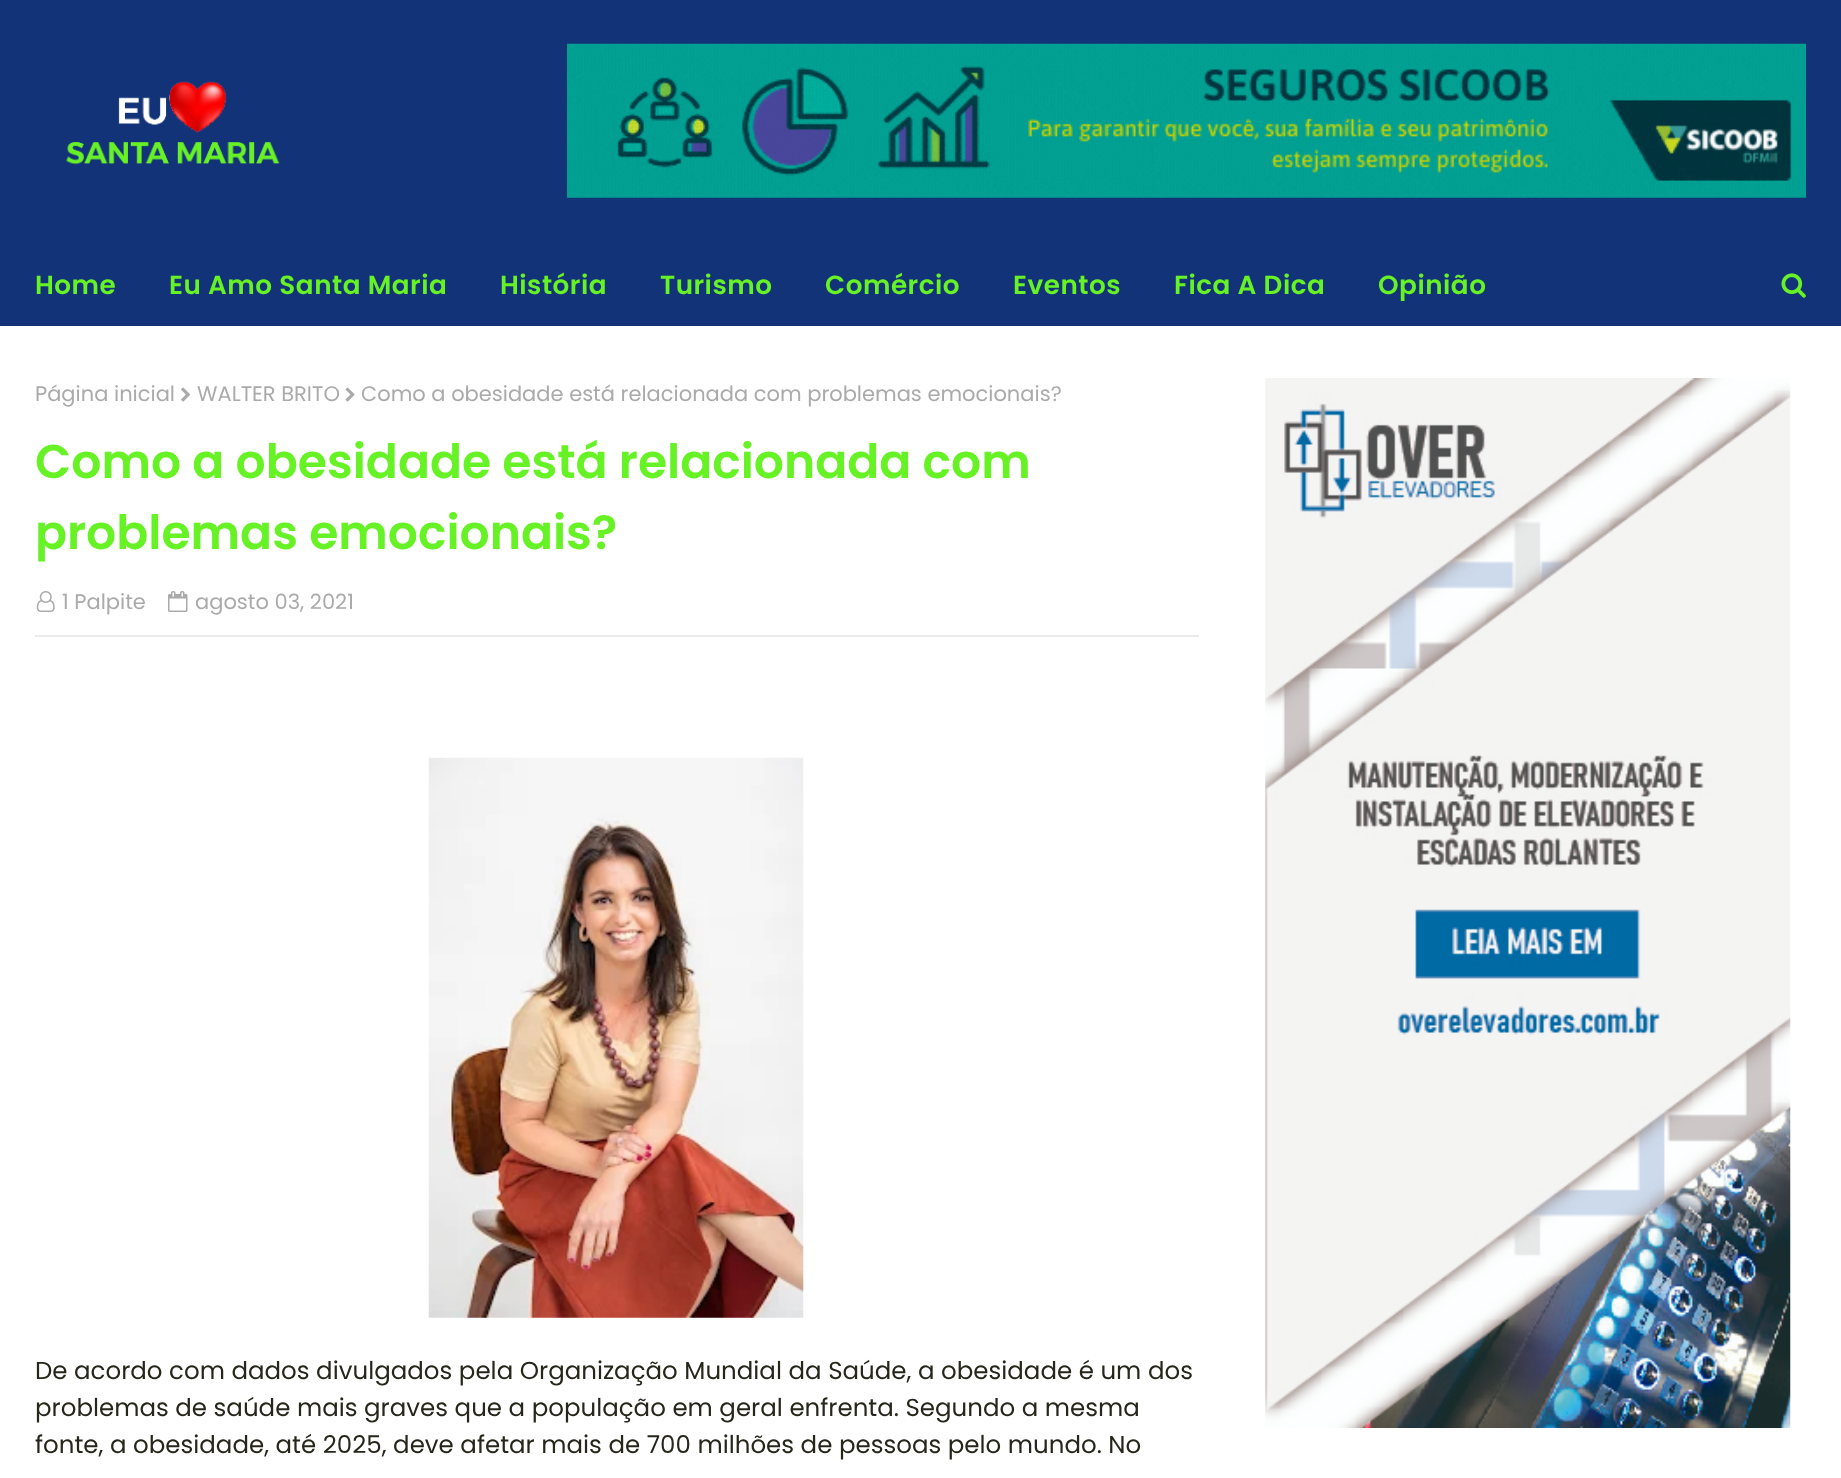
<svg xmlns="http://www.w3.org/2000/svg" width="1841" height="1478" viewBox="0 0 1841 1478">
  <rect width="100%" height="100%" fill="rgb(255,255,255)"/>
  <rect x="0" y="0" width="1841" height="326" fill="rgb(19,51,121)"/>
  <image x="66" y="81" width="214" height="84" href="pic1.png"/>
  <image x="567" y="43" width="1239" height="155" href="pic2.png"/>
  <g font-family="Poppins" font-size="26.25" font-weight="600" letter-spacing="0.5" fill="rgb(102,242,37)">
    <text x="35" y="294">Home</text>
    <text x="169" y="294">Eu Amo Santa Maria</text>
    <text x="500" y="294">História</text>
    <text x="660" y="294">Turismo</text>
    <text x="825" y="294">Comércio</text>
    <text x="1013" y="294">Eventos</text>
    <text x="1174" y="294">Fica A Dica</text>
    <text x="1378" y="294">Opinião</text>
  </g>
  <image x="1781" y="273" width="25" height="25" href="pic3.png"/>
  <text x="35" y="401" font-family="Poppins" font-size="21" fill="rgb(170,170,170)">Página inicial</text>
  <image x="181" y="387" width="10" height="15" href="pic4.png"/>
  <text x="197" y="401" font-family="Poppins" font-size="21" fill="rgb(170,170,170)">WALTER BRITO</text>
  <image x="345" y="387" width="10" height="15" href="pic5.png"/>
  <text x="361" y="401" font-family="Poppins" font-size="21" fill="rgb(170,170,170)">Como a obesidade está relacionada com problemas emocionais?</text>
  <g font-family="Poppins" font-size="47.25" font-weight="600" fill="rgb(102,242,37)">
    <text>
      <tspan x="35" y="478">Como a obesidade está relacionada com</tspan>
      <tspan x="35" y="549">problemas emocionais?</tspan>
    </text>
  </g>
  <image x="36" y="591" width="19" height="21" href="pic6.png"/>
  <text x="62" y="609" font-family="Poppins" font-size="21" fill="rgb(170,170,170)">1 Palpite</text>
  <image x="168" y="591" width="20" height="21" href="pic7.png"/>
  <text x="195" y="609" font-family="Poppins" font-size="21" fill="rgb(170,170,170)">agosto 03, 2021</text>
  <rect x="35" y="635" width="1164" height="2" fill="rgb(235,235,235)"/>
  <image x="428" y="757" width="376" height="561" href="pic8.png"/>
  <g font-family="Poppins" font-size="24.5" fill="rgb(39,38,27)">
    <text>
      <tspan x="35" y="1379">De acordo com dados divulgados pela Organização Mundial da Saúde, a obesidade é um dos</tspan>
      <tspan x="35" y="1416">problemas de saúde mais graves que a população em geral enfrenta. Segundo a mesma</tspan>
      <tspan x="35" y="1453">fonte, a obesidade, até 2025, deve afetar mais de 700 milhões de pessoas pelo mundo. No</tspan>
    </text>
  </g>
  <image x="1265" y="378" width="526" height="1050" href="pic9.png"/>
</svg>
